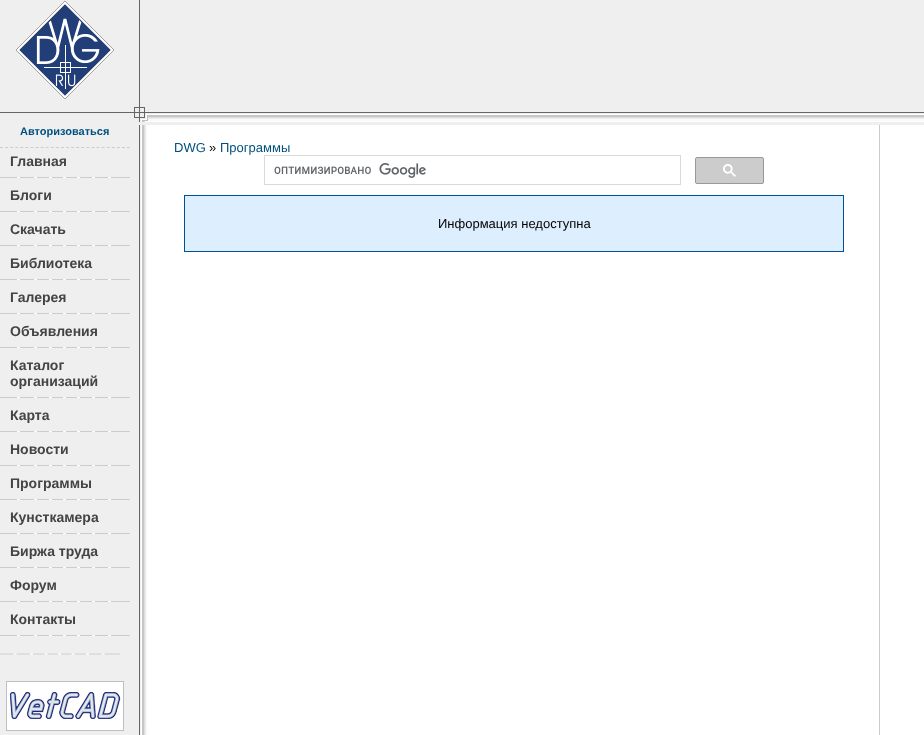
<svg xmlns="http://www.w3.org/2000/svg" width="924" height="735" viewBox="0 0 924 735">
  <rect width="100%" height="100%" fill="rgb(239,239,239)"/>
  <image x="16" y="1" width="98" height="98" href="pic1.png"/>
  <rect x="139" y="0" width="1" height="103" fill="rgb(102,102,102)"/>
  <rect x="0" y="112" width="130" height="1" fill="rgb(102,102,102)"/>
  <image x="130" y="103" width="19" height="19" href="pic2.png"/>
  <image x="149" y="112" width="775" height="10" href="pic3.png"/>
  <path d="M0 147.5H130" fill="none" stroke="rgb(204,204,204)" stroke-dasharray="3 2.08"/>
  <text x="20" y="135" font-family="Liberation Sans" font-size="11" font-weight="bold" fill="rgb(0,80,127)">Авторизоваться</text>
  <image x="0" y="177" width="130" height="1" href="pic4.png"/>
  <text x="10" y="166" font-family="Liberation Sans" font-size="14" font-weight="bold" fill="rgb(68,68,68)">Главная</text>
  <image x="0" y="211" width="130" height="1" href="pic4.png"/>
  <text x="10" y="200" font-family="Liberation Sans" font-size="14" font-weight="bold" fill="rgb(68,68,68)">Блоги</text>
  <image x="0" y="245" width="130" height="1" href="pic4.png"/>
  <text x="10" y="234" font-family="Liberation Sans" font-size="14" font-weight="bold" fill="rgb(68,68,68)">Скачать</text>
  <image x="0" y="279" width="130" height="1" href="pic4.png"/>
  <text x="10" y="268" font-family="Liberation Sans" font-size="14" font-weight="bold" fill="rgb(68,68,68)">Библиотека</text>
  <image x="0" y="313" width="130" height="1" href="pic4.png"/>
  <text x="10" y="302" font-family="Liberation Sans" font-size="14" font-weight="bold" fill="rgb(68,68,68)">Галерея</text>
  <image x="0" y="347" width="130" height="1" href="pic4.png"/>
  <text x="10" y="336" font-family="Liberation Sans" font-size="14" font-weight="bold" fill="rgb(68,68,68)">Объявления</text>
  <image x="0" y="397" width="130" height="1" href="pic4.png"/>
  <g font-family="Liberation Sans" font-size="14" font-weight="bold" fill="rgb(68,68,68)">
    <text>
      <tspan x="10" y="370">Каталог</tspan>
      <tspan x="10" y="386">организаций</tspan>
    </text>
  </g>
  <image x="0" y="431" width="130" height="1" href="pic4.png"/>
  <text x="10" y="420" font-family="Liberation Sans" font-size="14" font-weight="bold" fill="rgb(68,68,68)">Карта</text>
  <image x="0" y="465" width="130" height="1" href="pic4.png"/>
  <text x="10" y="454" font-family="Liberation Sans" font-size="14" font-weight="bold" fill="rgb(68,68,68)">Новости</text>
  <image x="0" y="499" width="130" height="1" href="pic4.png"/>
  <text x="10" y="488" font-family="Liberation Sans" font-size="14" font-weight="bold" fill="rgb(68,68,68)">Программы</text>
  <image x="0" y="533" width="130" height="1" href="pic4.png"/>
  <text x="10" y="522" font-family="Liberation Sans" font-size="14" font-weight="bold" fill="rgb(68,68,68)">Кунсткамера</text>
  <image x="0" y="567" width="130" height="1" href="pic4.png"/>
  <text x="10" y="556" font-family="Liberation Sans" font-size="14" font-weight="bold" fill="rgb(68,68,68)">Биржа труда</text>
  <image x="0" y="601" width="130" height="1" href="pic4.png"/>
  <text x="10" y="590" font-family="Liberation Sans" font-size="14" font-weight="bold" fill="rgb(68,68,68)">Форум</text>
  <image x="0" y="635" width="130" height="1" href="pic4.png"/>
  <text x="10" y="624" font-family="Liberation Sans" font-size="14" font-weight="bold" fill="rgb(68,68,68)">Контакты</text>
  <image x="0" y="653" width="120" height="2" href="pic5.png"/>
  <image x="6" y="681" width="118" height="50" href="pic6.png"/>
  <image x="139" y="125" width="10" height="610" href="pic7.png"/>
  <rect x="149" y="125" width="730" height="610" fill="rgb(255,255,255)"/>
  <text x="174" y="152" font-family="Liberation Sans" font-size="13" fill="rgb(0,80,127)">DWG</text>
  <text x="209" y="152" font-family="Liberation Sans" font-size="13" fill="rgb(0,0,0)">»</text>
  <text x="220" y="152" font-family="Liberation Sans" font-size="13" fill="rgb(0,80,127)">Программы</text>
  <rect x="264.5" y="155.5" width="416" height="29" fill="none" stroke="rgb(217,217,217)"/>
  <image x="274" y="163" width="152" height="15" href="pic8.png"/>
  <rect x="695.5" y="157.5" width="68" height="26" rx="1.5" fill="rgb(204,204,204)" stroke="rgb(153,153,153)"/>
  <image x="723" y="164" width="13" height="13" href="pic9.png"/>
  <rect x="184.5" y="195.5" width="659" height="56" fill="rgb(221,238,255)" stroke="rgb(0,80,149)"/>
  <text x="438" y="228" font-family="Liberation Sans" font-size="13" fill="rgb(0,0,0)">Информация недоступна</text>
  <rect x="880" y="125" width="44" height="610" fill="rgb(255,255,255)"/>
  <rect x="879" y="125" width="1" height="610" fill="rgb(204,204,204)"/>
</svg>
